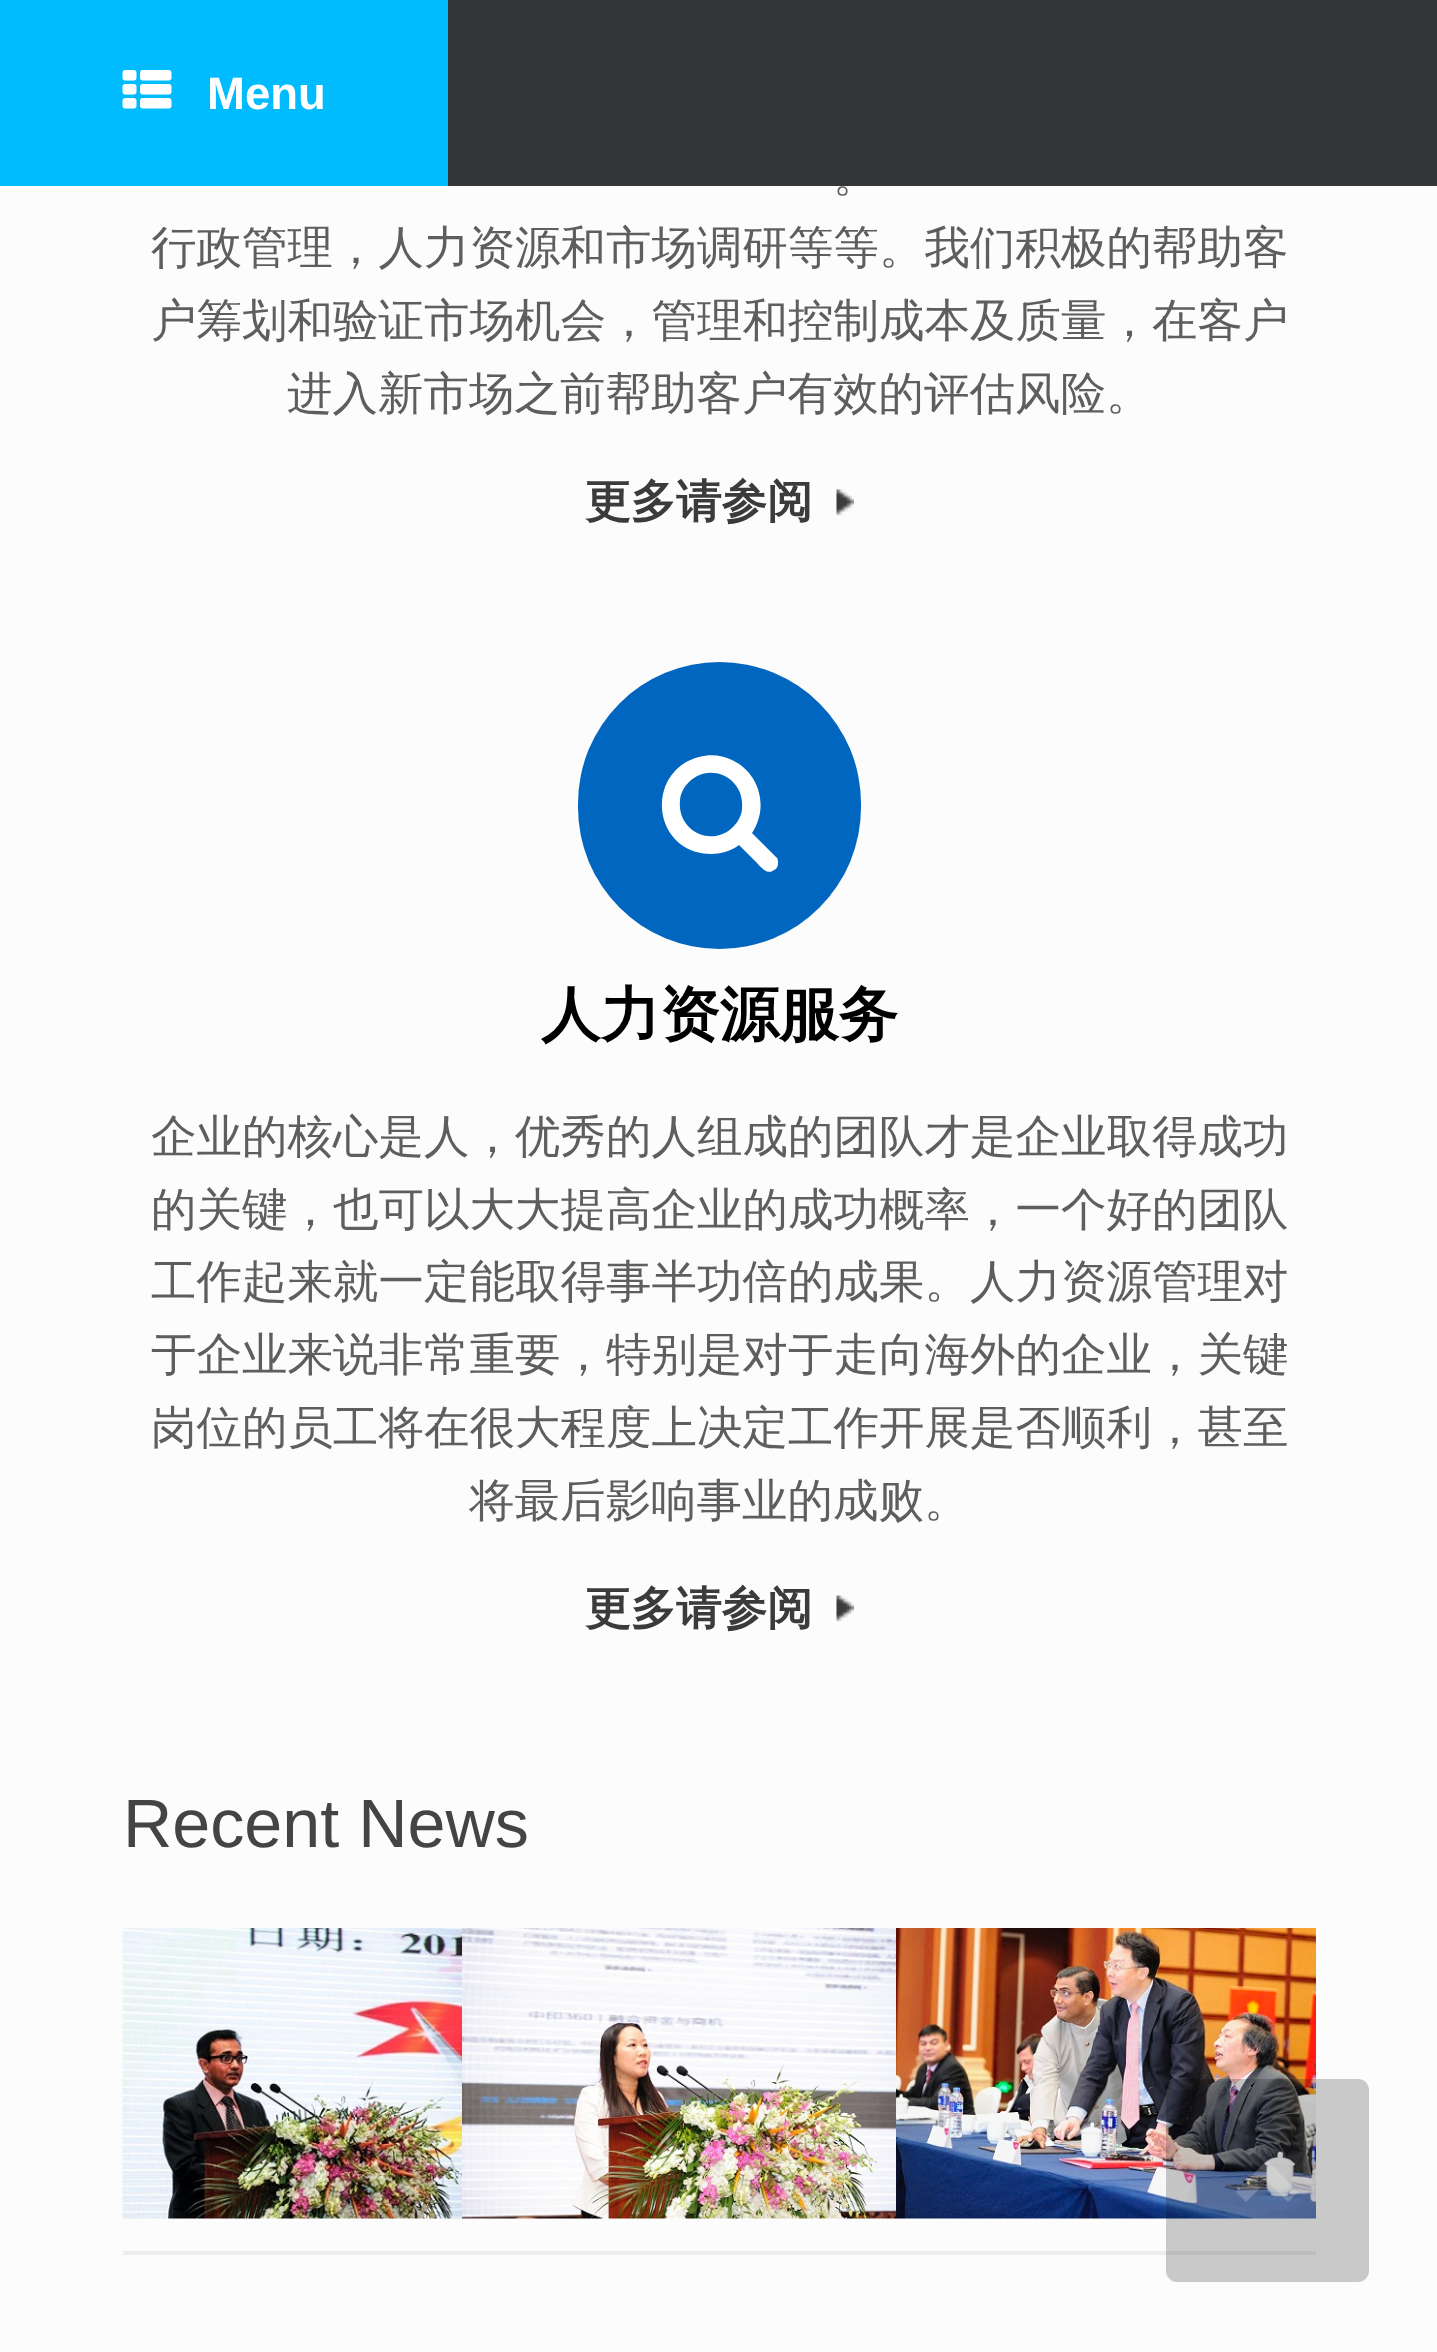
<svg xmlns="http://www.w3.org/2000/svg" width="1437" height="2352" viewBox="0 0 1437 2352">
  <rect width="100%" height="100%" fill="rgb(252,252,252)"/>
  <rect x="448" y="0" width="989" height="186" fill="rgb(52,53,56)"/>
  <rect x="0" y="0" width="448" height="186" fill="rgb(0,188,255)"/>
  <image x="122" y="70" width="50" height="39" href="pic1.png"/>
  <text x="207" y="109" font-family="Liberation Sans" font-size="45.5" font-weight="bold" fill="rgb(255,255,255)">Menu</text>
  <g font-family="WenQuanYi Zen Hei" font-size="45.5" font-weight="500" fill="rgb(94,94,94)">
    <text x="833" y="191">。</text>
    <text>
      <tspan x="151" y="263">行政管理，人力资源和市场调研等等。我们积极的帮助客</tspan>
      <tspan x="151" y="336">户筹划和验证市场机会，管理和控制成本及质量，在客户</tspan>
    </text>
    <text x="287" y="409">进入新市场之前帮助客户有效的评估风险。</text>
  </g>
  <text x="585" y="517" font-family="WenQuanYi Zen Hei" font-size="45.5" font-weight="bold" fill="rgb(59,59,59)">更多请参阅</text>
  <image x="836" y="489" width="18" height="27" href="pic2.png"/>
  <rect x="578" y="662" width="283" height="287" rx="141.5" fill="rgb(0,102,191)"/>
  <path d="M733 827C738 822 742 815 742 808C745 778 710 761 689 782C684 787 680 794 680 801C677 831 712 848 733 827ZM778 863C778 866 777 869 774 870C767 876 760 866 755 861L739 845C727 854 711 856 696 852C649 837 651 769 699 757C710 754 722 755 732 760C760 773 769 808 752 833L776 857C778 858 778 861 778 863Z" fill="rgb(255,255,255)"/>
  <text x="541" y="1035" font-family="WenQuanYi Zen Hei" font-size="59.5" font-weight="bold" fill="rgb(0,0,0)">人力资源服务</text>
  <g font-family="WenQuanYi Zen Hei" font-size="45.5" font-weight="500" fill="rgb(94,94,94)">
    <text>
      <tspan x="151" y="1152">企业的核心是人，优秀的人组成的团队才是企业取得成功</tspan>
      <tspan x="151" y="1225">的关键，也可以大大提高企业的成功概率，一个好的团队</tspan>
      <tspan x="151" y="1297">工作起来就一定能取得事半功倍的成果。人力资源管理对</tspan>
      <tspan x="151" y="1370">于企业来说非常重要，特别是对于走向海外的企业，关键</tspan>
      <tspan x="151" y="1443">岗位的员工将在很大程度上决定工作开展是否顺利，甚至</tspan>
    </text>
    <text x="469" y="1516">将最后影响事业的成败。</text>
  </g>
  <text x="585" y="1624" font-family="WenQuanYi Zen Hei" font-size="45.5" font-weight="bold" fill="rgb(59,59,59)">更多请参阅</text>
  <image x="836" y="1595" width="18" height="27" href="pic2.png"/>
  <text x="123" y="1847" font-family="Liberation Sans" font-size="68.25" fill="rgb(68,68,68)">Recent News</text>
  <rect x="123" y="2251" width="1193" height="4" fill="rgb(237,237,237)"/>
  <image x="122" y="1928" width="340" height="291" href="pic3.png"/>
  <image x="462" y="1928" width="434" height="291" href="pic4.png"/>
  <image x="896" y="1928" width="420" height="291" href="pic5.png"/>
  <rect x="1166" y="2079" width="203" height="203" rx="11" fill="rgba(0,0,0,0.2)"/>
  <path d="M1298 2192L1267 2160L1236 2192L1246 2202L1267 2181L1288 2202Z" fill="rgba(255,255,255,0.2)"/>
</svg>
